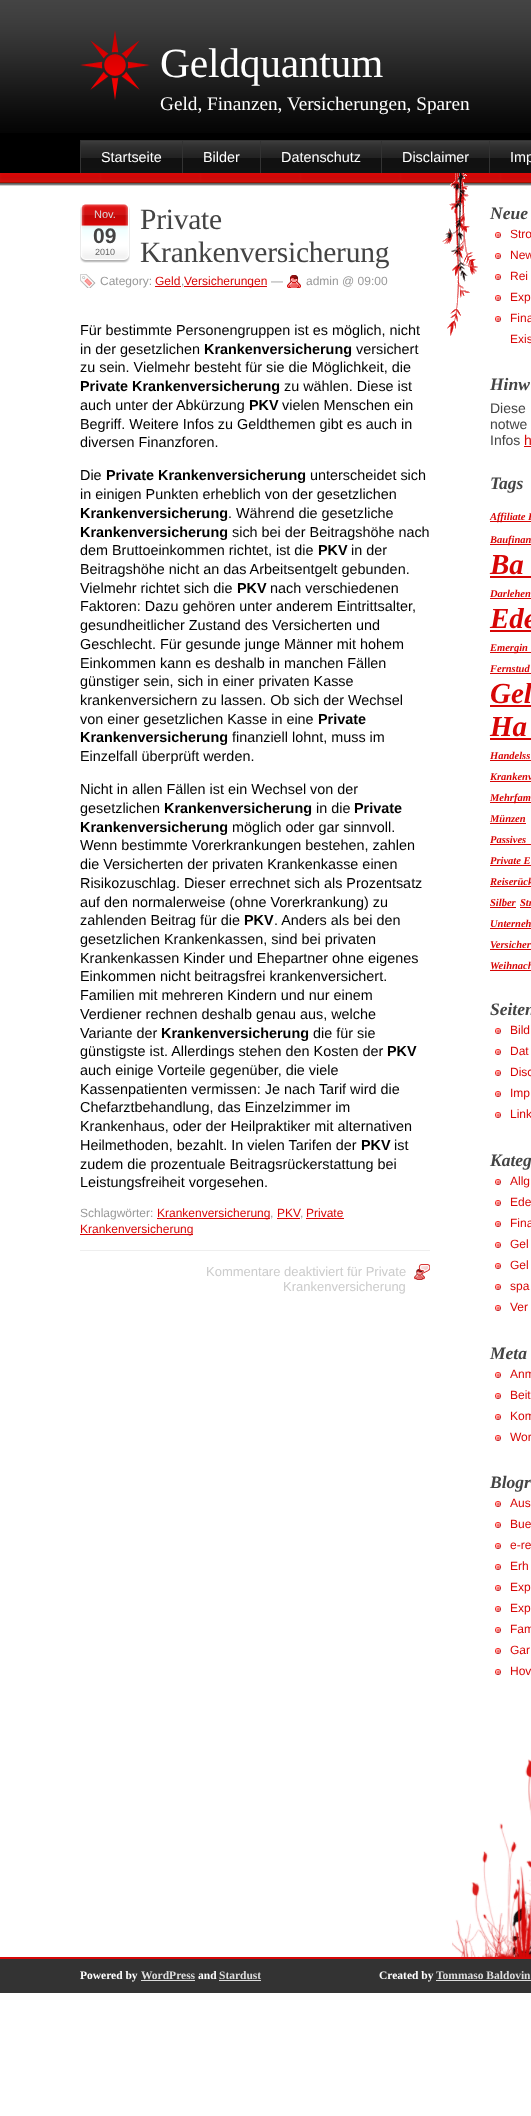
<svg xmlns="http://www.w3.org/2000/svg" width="531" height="2116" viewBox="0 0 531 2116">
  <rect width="100%" height="100%" fill="rgb(255,255,255)"/>
  <image x="0" y="173" width="531" height="13" href="pic1.png"/>
  <image x="450" y="1759" width="81" height="198" href="pic2.png"/>
  <rect x="0" y="133" width="531" height="40" fill="rgb(0,0,0)"/>
  <image x="0" y="0" width="531" height="133" href="pic3.png"/>
  <text x="160" y="77" font-family="Liberation Serif" font-size="41.5" letter-spacing="-0.25" fill="rgb(255,255,255)">Geldquantum</text>
  <text x="160" y="110" font-family="Liberation Serif" font-size="19.25" fill="rgb(255,255,255)">Geld, Finanzen, Versicherungen, Sparen</text>
  <image x="81" y="141" width="101" height="32" href="pic4.png"/>
  <rect x="80" y="140" width="451" height="1" fill="rgb(51,51,51)"/>
  <rect x="80" y="140" width="1" height="33" fill="rgb(51,51,51)"/>
  <text x="101" y="162" font-family="Liberation Sans" font-size="14.4" fill="rgb(255,255,255)">Startseite</text>
  <image x="183" y="141" width="77" height="32" href="pic5.png"/>
  <rect x="182" y="140" width="1" height="33" fill="rgb(51,51,51)"/>
  <text x="203" y="162" font-family="Liberation Sans" font-size="14.4" fill="rgb(255,255,255)">Bilder</text>
  <image x="261" y="141" width="120" height="32" href="pic6.png"/>
  <rect x="260" y="140" width="1" height="33" fill="rgb(51,51,51)"/>
  <text x="281" y="162" font-family="Liberation Sans" font-size="14.4" fill="rgb(255,255,255)">Datenschutz</text>
  <image x="382" y="141" width="107" height="32" href="pic7.png"/>
  <rect x="381" y="140" width="1" height="33" fill="rgb(51,51,51)"/>
  <text x="402" y="162" font-family="Liberation Sans" font-size="14.4" fill="rgb(255,255,255)">Disclaimer</text>
  <image x="490" y="141" width="41" height="32" href="pic8.png"/>
  <rect x="489" y="140" width="1" height="33" fill="rgb(51,51,51)"/>
  <text x="510" y="162" font-family="Liberation Sans" font-size="14.4" fill="rgb(255,255,255)">Imp</text>
  <image x="80" y="203" width="50" height="60" href="pic9.png"/>
  <text x="94" y="218" font-family="Liberation Sans" font-size="11" fill="rgb(221,221,221)">Nov.</text>
  <text x="93" y="243" font-family="Liberation Sans" font-size="21" font-weight="bold" fill="rgb(68,68,68)">09</text>
  <text x="95" y="255" font-family="Liberation Sans" font-size="9" fill="rgb(102,102,102)">2010</text>
  <g font-family="Liberation Serif" font-size="29.5" letter-spacing="-0.25" fill="rgb(68,68,68)">
    <text>
      <tspan x="140" y="229">Private</tspan>
      <tspan x="140" y="262">Krankenversicherung</tspan>
    </text>
  </g>
  <image x="80" y="274" width="16" height="14" href="pic10.png"/>
  <text x="100" y="285" font-family="Liberation Sans" font-size="12" fill="rgb(153,153,153)">Category:</text>
  <text x="155" y="285" font-family="Liberation Sans" font-size="12" fill="rgb(215,6,6)">Geld</text>
  <rect x="184" y="286" width="83" height="1" fill="rgb(215,6,6)"/>
  <text x="184" y="285" font-family="Liberation Sans" font-size="12" fill="rgb(215,6,6)">Versicherungen</text>
  <text x="271" y="285" font-family="Liberation Sans" font-size="12" fill="rgb(153,153,153)">—</text>
  <image x="287" y="275" width="14" height="13" href="pic11.png"/>
  <g font-family="Liberation Sans" font-size="12" fill="rgb(153,153,153)">
    <text x="306" y="285">admin @ 09:00</text>
    <text x="181" y="285">,</text>
  </g>
  <rect x="155" y="286" width="26" height="1" fill="rgb(215,6,6)"/>
  <g font-family="Liberation Sans" font-size="14.4" fill="rgb(0,0,0)">
    <text>
      <tspan x="80" y="335">Für bestimmte Personengruppen ist es möglich, nicht</tspan>
      <tspan x="80" y="354">in der gesetzlichen</tspan>
    </text>
  </g>
  <text x="204" y="354" font-family="Liberation Sans" font-size="14.4" font-weight="bold" fill="rgb(0,0,0)">Krankenversicherung</text>
  <g font-family="Liberation Sans" font-size="14.4" fill="rgb(0,0,0)">
    <text x="356" y="354">versichert</text>
    <text x="80" y="372">zu sein. Vielmehr besteht für sie die Möglichkeit, die</text>
  </g>
  <text x="80" y="391" font-family="Liberation Sans" font-size="14.4" font-weight="bold" fill="rgb(0,0,0)">Private Krankenversicherung</text>
  <g font-family="Liberation Sans" font-size="14.4" fill="rgb(0,0,0)">
    <text x="284" y="391">zu wählen. Diese ist</text>
    <text x="80" y="410">auch unter der Abkürzung</text>
  </g>
  <text x="249" y="410" font-family="Liberation Sans" font-size="14.4" font-weight="bold" fill="rgb(0,0,0)">PKV</text>
  <g font-family="Liberation Sans" font-size="14.4" fill="rgb(0,0,0)">
    <text x="282" y="410">vielen Menschen ein</text>
    <text>
      <tspan x="80" y="429">Begriff. Weitere Infos zu Geldthemen gibt es auch in</tspan>
      <tspan x="80" y="447">diversen Finanzforen.</tspan>
    </text>
    <text x="80" y="480">Die</text>
  </g>
  <text x="106" y="480" font-family="Liberation Sans" font-size="14.4" font-weight="bold" fill="rgb(0,0,0)">Private Krankenversicherung</text>
  <g font-family="Liberation Sans" font-size="14.4" fill="rgb(0,0,0)">
    <text x="310" y="480">unterscheidet sich</text>
    <text x="80" y="499">in einigen Punkten erheblich von der gesetzlichen</text>
  </g>
  <text x="80" y="518" font-family="Liberation Sans" font-size="14.4" font-weight="bold" fill="rgb(0,0,0)">Krankenversicherung</text>
  <text x="228" y="518" font-family="Liberation Sans" font-size="14.4" fill="rgb(0,0,0)">. Während die gesetzliche</text>
  <text x="80" y="537" font-family="Liberation Sans" font-size="14.4" font-weight="bold" fill="rgb(0,0,0)">Krankenversicherung</text>
  <g font-family="Liberation Sans" font-size="14.4" fill="rgb(0,0,0)">
    <text x="232" y="537">sich bei der Beitragshöhe nach</text>
    <text x="80" y="555">dem Bruttoeinkommen richtet, ist die</text>
  </g>
  <text x="318" y="555" font-family="Liberation Sans" font-size="14.4" font-weight="bold" fill="rgb(0,0,0)">PKV</text>
  <g font-family="Liberation Sans" font-size="14.4" fill="rgb(0,0,0)">
    <text x="351" y="555">in der</text>
    <text>
      <tspan x="80" y="574">Beitragshöhe nicht an das Arbeitsentgelt gebunden.</tspan>
      <tspan x="80" y="593">Vielmehr richtet sich die</tspan>
    </text>
  </g>
  <text x="237" y="593" font-family="Liberation Sans" font-size="14.4" font-weight="bold" fill="rgb(0,0,0)">PKV</text>
  <g font-family="Liberation Sans" font-size="14.4" fill="rgb(0,0,0)">
    <text x="270" y="593">nach verschiedenen</text>
    <text>
      <tspan x="80" y="611">Faktoren: Dazu gehören unter anderem Eintrittsalter,</tspan>
      <tspan x="80" y="630">gesundheitlicher Zustand des Versicherten und</tspan>
      <tspan x="80" y="649">Geschlecht. Für gesunde junge Männer mit hohem</tspan>
      <tspan x="80" y="668">Einkommen kann es deshalb in manchen Fällen</tspan>
      <tspan x="80" y="686">günstiger sein, sich in einer privaten Kasse</tspan>
      <tspan x="80" y="705">krankenversichern zu lassen. Ob sich der Wechsel</tspan>
      <tspan x="80" y="724">von einer gesetzlichen Kasse in eine</tspan>
    </text>
  </g>
  <g font-family="Liberation Sans" font-size="14.4" font-weight="bold" fill="rgb(0,0,0)">
    <text x="318" y="724">Private</text>
    <text x="80" y="742">Krankenversicherung</text>
  </g>
  <g font-family="Liberation Sans" font-size="14.4" fill="rgb(0,0,0)">
    <text x="232" y="742">finanziell lohnt, muss im</text>
    <text x="80" y="761">Einzelfall überprüft werden.</text>
    <text>
      <tspan x="80" y="794">Nicht in allen Fällen ist ein Wechsel von der</tspan>
      <tspan x="80" y="813">gesetzlichen</tspan>
    </text>
  </g>
  <text x="164" y="813" font-family="Liberation Sans" font-size="14.4" font-weight="bold" fill="rgb(0,0,0)">Krankenversicherung</text>
  <text x="316" y="813" font-family="Liberation Sans" font-size="14.4" fill="rgb(0,0,0)">in die</text>
  <g font-family="Liberation Sans" font-size="14.4" font-weight="bold" fill="rgb(0,0,0)">
    <text x="354" y="813">Private</text>
    <text x="80" y="832">Krankenversicherung</text>
  </g>
  <g font-family="Liberation Sans" font-size="14.4" fill="rgb(0,0,0)">
    <text x="232" y="832">möglich oder gar sinnvoll.</text>
    <text>
      <tspan x="80" y="850">Wenn bestimmte Vorerkrankungen bestehen, zahlen</tspan>
      <tspan x="80" y="869">die Versicherten der privaten Krankenkasse einen</tspan>
      <tspan x="80" y="888">Risikozuschlag. Dieser errechnet sich als Prozentsatz</tspan>
      <tspan x="80" y="907">auf den normalerweise (ohne Vorerkrankung) zu</tspan>
      <tspan x="80" y="925">zahlenden Beitrag für die</tspan>
    </text>
  </g>
  <text x="244" y="925" font-family="Liberation Sans" font-size="14.4" font-weight="bold" fill="rgb(0,0,0)">PKV</text>
  <g font-family="Liberation Sans" font-size="14.4" fill="rgb(0,0,0)">
    <text x="274" y="925">. Anders als bei den</text>
    <text>
      <tspan x="80" y="944">gesetzlichen Krankenkassen, sind bei privaten</tspan>
      <tspan x="80" y="963">Krankenkassen Kinder und Ehepartner ohne eigenes</tspan>
      <tspan x="80" y="981">Einkommen nicht beitragsfrei krankenversichert.</tspan>
      <tspan x="80" y="1000">Familien mit mehreren Kindern und nur einem</tspan>
      <tspan x="80" y="1019">Verdiener rechnen deshalb genau aus, welche</tspan>
      <tspan x="80" y="1038">Variante der</tspan>
    </text>
  </g>
  <text x="161" y="1038" font-family="Liberation Sans" font-size="14.4" font-weight="bold" fill="rgb(0,0,0)">Krankenversicherung</text>
  <g font-family="Liberation Sans" font-size="14.4" fill="rgb(0,0,0)">
    <text x="313" y="1038">die für sie</text>
    <text x="80" y="1056">günstigste ist. Allerdings stehen den Kosten der</text>
  </g>
  <text x="387" y="1056" font-family="Liberation Sans" font-size="14.4" font-weight="bold" fill="rgb(0,0,0)">PKV</text>
  <g font-family="Liberation Sans" font-size="14.4" fill="rgb(0,0,0)">
    <text>
      <tspan x="80" y="1075">auch einige Vorteile gegenüber, die viele</tspan>
      <tspan x="80" y="1094">Kassenpatienten vermissen: Je nach Tarif wird die</tspan>
      <tspan x="80" y="1112">Chefarztbehandlung, das Einzelzimmer im</tspan>
      <tspan x="80" y="1131">Krankenhaus, oder der Heilpraktiker mit alternativen</tspan>
      <tspan x="80" y="1150">Heilmethoden, bezahlt. In vielen Tarifen der</tspan>
    </text>
  </g>
  <text x="361" y="1150" font-family="Liberation Sans" font-size="14.4" font-weight="bold" fill="rgb(0,0,0)">PKV</text>
  <g font-family="Liberation Sans" font-size="14.4" fill="rgb(0,0,0)">
    <text x="394" y="1150">ist</text>
    <text>
      <tspan x="80" y="1169">zudem die prozentuale Beitragsrückerstattung bei</tspan>
      <tspan x="80" y="1187">Leistungsfreiheit vorgesehen.</tspan>
    </text>
  </g>
  <text x="80" y="1217" font-family="Liberation Sans" font-size="12" fill="rgb(153,153,153)">Schlagwörter:</text>
  <rect x="157" y="1218" width="113" height="1" fill="rgb(215,6,6)"/>
  <text x="157" y="1217" font-family="Liberation Sans" font-size="12" fill="rgb(215,6,6)">Krankenversicherung</text>
  <text x="270" y="1217" font-family="Liberation Sans" font-size="12" fill="rgb(153,153,153)">,</text>
  <text x="277" y="1217" font-family="Liberation Sans" font-size="12" fill="rgb(215,6,6)">PKV</text>
  <rect x="277" y="1218" width="23" height="1" fill="rgb(215,6,6)"/>
  <text x="306" y="1217" font-family="Liberation Sans" font-size="12" fill="rgb(215,6,6)">Private</text>
  <rect x="306" y="1218" width="38" height="1" fill="rgb(215,6,6)"/>
  <text x="300" y="1217" font-family="Liberation Sans" font-size="12" fill="rgb(153,153,153)">,</text>
  <rect x="80" y="1234" width="113" height="1" fill="rgb(215,6,6)"/>
  <text x="80" y="1233" font-family="Liberation Sans" font-size="12" fill="rgb(215,6,6)">Krankenversicherung</text>
  <rect x="80" y="1250" width="350" height="1" fill="rgb(238,238,238)"/>
  <image x="414" y="1264" width="16" height="16" href="pic12.png"/>
  <g font-family="Liberation Sans" font-size="13" fill="rgb(204,204,204)">
    <text x="206" y="1276">Kommentare deaktiviert für Private</text>
    <text x="283" y="1291">Krankenversicherung</text>
  </g>
  <image x="442" y="173" width="36" height="163" href="pic13.png"/>
  <text x="490" y="219" font-family="Liberation Serif" font-size="17.5" font-weight="bold" font-style="italic" fill="rgb(68,68,68)">Neue</text>
  <image x="495" y="232" width="6" height="6" href="pic14.png"/>
  <text x="510" y="238" font-family="Liberation Sans" font-size="12" fill="rgb(215,6,6)">Stro</text>
  <image x="495" y="253" width="6" height="6" href="pic14.png"/>
  <text x="510" y="259" font-family="Liberation Sans" font-size="12" fill="rgb(215,6,6)">New</text>
  <image x="495" y="274" width="6" height="6" href="pic14.png"/>
  <text x="510" y="280" font-family="Liberation Sans" font-size="12" fill="rgb(215,6,6)">Rei</text>
  <image x="495" y="295" width="6" height="6" href="pic14.png"/>
  <text x="510" y="301" font-family="Liberation Sans" font-size="12" fill="rgb(215,6,6)">Exp</text>
  <image x="495" y="316" width="6" height="6" href="pic14.png"/>
  <g font-family="Liberation Sans" font-size="12" fill="rgb(215,6,6)">
    <text>
      <tspan x="510" y="322">Fina</tspan>
      <tspan x="510" y="343">Exis</tspan>
    </text>
  </g>
  <text x="490" y="390" font-family="Liberation Serif" font-size="17.5" font-weight="bold" font-style="italic" fill="rgb(68,68,68)">Hinw</text>
  <g font-family="Liberation Sans" font-size="14" fill="rgb(68,68,68)">
    <text>
      <tspan x="490" y="413">Diese</tspan>
      <tspan x="490" y="429">notwe</tspan>
      <tspan x="490" y="445">Infos</tspan>
    </text>
  </g>
  <text x="524" y="445" font-family="Liberation Sans" font-size="14" fill="rgb(215,6,6)">h</text>
  <rect x="524" y="446" width="7" height="1" fill="rgb(215,6,6)"/>
  <text x="490" y="489" font-family="Liberation Serif" font-size="17.5" font-weight="bold" font-style="italic" fill="rgb(68,68,68)">Tags</text>
  <rect x="490" y="521" width="41" height="1" fill="rgb(215,6,6)"/>
  <text x="490" y="520" font-family="Liberation Serif" font-size="10.5" font-weight="bold" font-style="italic" fill="rgb(215,6,6)">Affiliate P</text>
  <rect x="490" y="544" width="41" height="1" fill="rgb(215,6,6)"/>
  <text x="490" y="543" font-family="Liberation Serif" font-size="10.5" font-weight="bold" font-style="italic" fill="rgb(215,6,6)">Baufinan</text>
  <text x="490" y="574" font-family="Liberation Serif" font-size="29" font-weight="bold" font-style="italic" fill="rgb(215,6,6)">Ba</text>
  <rect x="490" y="576" width="41" height="2" fill="rgb(215,6,6)"/>
  <text x="490" y="597" font-family="Liberation Serif" font-size="10.5" font-weight="bold" font-style="italic" fill="rgb(215,6,6)">Darlehen</text>
  <rect x="490" y="598" width="41" height="1" fill="rgb(215,6,6)"/>
  <text x="490" y="628" font-family="Liberation Serif" font-size="29" font-weight="bold" font-style="italic" fill="rgb(215,6,6)">Ede</text>
  <rect x="490" y="630" width="41" height="2" fill="rgb(215,6,6)"/>
  <rect x="490" y="652" width="41" height="1" fill="rgb(215,6,6)"/>
  <g font-family="Liberation Serif" font-size="10.5" font-weight="bold" font-style="italic" fill="rgb(215,6,6)">
    <text x="490" y="651">Emergin</text>
    <text x="490" y="672">Fernstud</text>
  </g>
  <rect x="490" y="673" width="41" height="1" fill="rgb(215,6,6)"/>
  <text x="490" y="703" font-family="Liberation Serif" font-size="29" font-weight="bold" font-style="italic" fill="rgb(215,6,6)">Gel</text>
  <rect x="490" y="705" width="41" height="2" fill="rgb(215,6,6)"/>
  <text x="490" y="736" font-family="Liberation Serif" font-size="29" font-weight="bold" font-style="italic" fill="rgb(215,6,6)">Ha</text>
  <rect x="490" y="738" width="41" height="2" fill="rgb(215,6,6)"/>
  <text x="490" y="759" font-family="Liberation Serif" font-size="10.5" font-weight="bold" font-style="italic" fill="rgb(215,6,6)">Handelss</text>
  <rect x="490" y="760" width="41" height="1" fill="rgb(215,6,6)"/>
  <text x="490" y="780" font-family="Liberation Serif" font-size="10.5" font-weight="bold" font-style="italic" fill="rgb(215,6,6)">Krankenv</text>
  <rect x="490" y="781" width="41" height="1" fill="rgb(215,6,6)"/>
  <rect x="490" y="802" width="41" height="1" fill="rgb(215,6,6)"/>
  <g font-family="Liberation Serif" font-size="10.5" font-weight="bold" font-style="italic" fill="rgb(215,6,6)">
    <text x="490" y="801">Mehrfam</text>
    <text x="490" y="822">Münzen</text>
  </g>
  <rect x="490" y="823" width="36" height="1" fill="rgb(215,6,6)"/>
  <text x="490" y="843" font-family="Liberation Serif" font-size="10.5" font-weight="bold" font-style="italic" fill="rgb(215,6,6)">Passives</text>
  <rect x="490" y="844" width="41" height="1" fill="rgb(215,6,6)"/>
  <text x="490" y="864" font-family="Liberation Serif" font-size="10.5" font-weight="bold" font-style="italic" fill="rgb(215,6,6)">Private E</text>
  <rect x="490" y="865" width="41" height="1" fill="rgb(215,6,6)"/>
  <text x="490" y="885" font-family="Liberation Serif" font-size="10.5" font-weight="bold" font-style="italic" fill="rgb(215,6,6)">Reiserück</text>
  <rect x="490" y="886" width="41" height="1" fill="rgb(215,6,6)"/>
  <text x="490" y="906" font-family="Liberation Serif" font-size="10.5" font-weight="bold" font-style="italic" fill="rgb(215,6,6)">Silber</text>
  <rect x="490" y="907" width="26" height="1" fill="rgb(215,6,6)"/>
  <text x="520" y="906" font-family="Liberation Serif" font-size="10.5" font-weight="bold" font-style="italic" fill="rgb(215,6,6)">Str</text>
  <rect x="520" y="907" width="11" height="1" fill="rgb(215,6,6)"/>
  <text x="490" y="927" font-family="Liberation Serif" font-size="10.5" font-weight="bold" font-style="italic" fill="rgb(215,6,6)">Unterneh</text>
  <rect x="490" y="928" width="41" height="1" fill="rgb(215,6,6)"/>
  <text x="490" y="948" font-family="Liberation Serif" font-size="10.5" font-weight="bold" font-style="italic" fill="rgb(215,6,6)">Versicher</text>
  <rect x="490" y="949" width="41" height="1" fill="rgb(215,6,6)"/>
  <text x="490" y="969" font-family="Liberation Serif" font-size="10.5" font-weight="bold" font-style="italic" fill="rgb(215,6,6)">Weihnach</text>
  <rect x="490" y="970" width="41" height="1" fill="rgb(215,6,6)"/>
  <text x="490" y="1015" font-family="Liberation Serif" font-size="17.5" font-weight="bold" font-style="italic" fill="rgb(68,68,68)">Seiten</text>
  <image x="495" y="1028" width="6" height="6" href="pic14.png"/>
  <text x="510" y="1034" font-family="Liberation Sans" font-size="12" fill="rgb(215,6,6)">Bild</text>
  <image x="495" y="1049" width="6" height="6" href="pic14.png"/>
  <text x="510" y="1055" font-family="Liberation Sans" font-size="12" fill="rgb(215,6,6)">Dat</text>
  <image x="495" y="1070" width="6" height="6" href="pic14.png"/>
  <text x="510" y="1076" font-family="Liberation Sans" font-size="12" fill="rgb(215,6,6)">Disc</text>
  <image x="495" y="1091" width="6" height="6" href="pic14.png"/>
  <text x="510" y="1097" font-family="Liberation Sans" font-size="12" fill="rgb(215,6,6)">Imp</text>
  <image x="495" y="1112" width="6" height="6" href="pic14.png"/>
  <text x="510" y="1118" font-family="Liberation Sans" font-size="12" fill="rgb(215,6,6)">Link</text>
  <text x="490" y="1166" font-family="Liberation Serif" font-size="17.5" font-weight="bold" font-style="italic" fill="rgb(68,68,68)">Kateg</text>
  <image x="495" y="1179" width="6" height="6" href="pic14.png"/>
  <text x="510" y="1185" font-family="Liberation Sans" font-size="12" fill="rgb(215,6,6)">Allg</text>
  <image x="495" y="1200" width="6" height="6" href="pic14.png"/>
  <text x="510" y="1206" font-family="Liberation Sans" font-size="12" fill="rgb(215,6,6)">Ede</text>
  <image x="495" y="1221" width="6" height="6" href="pic14.png"/>
  <text x="510" y="1227" font-family="Liberation Sans" font-size="12" fill="rgb(215,6,6)">Fina</text>
  <image x="495" y="1242" width="6" height="6" href="pic14.png"/>
  <text x="510" y="1248" font-family="Liberation Sans" font-size="12" fill="rgb(215,6,6)">Gel</text>
  <image x="495" y="1263" width="6" height="6" href="pic14.png"/>
  <text x="510" y="1269" font-family="Liberation Sans" font-size="12" fill="rgb(215,6,6)">Gel</text>
  <image x="495" y="1284" width="6" height="6" href="pic14.png"/>
  <text x="510" y="1290" font-family="Liberation Sans" font-size="12" fill="rgb(215,6,6)">spa</text>
  <image x="495" y="1305" width="6" height="6" href="pic14.png"/>
  <text x="510" y="1311" font-family="Liberation Sans" font-size="12" fill="rgb(215,6,6)">Ver</text>
  <text x="490" y="1359" font-family="Liberation Serif" font-size="17.5" font-weight="bold" font-style="italic" fill="rgb(68,68,68)">Meta</text>
  <image x="495" y="1372" width="6" height="6" href="pic14.png"/>
  <text x="510" y="1378" font-family="Liberation Sans" font-size="12" fill="rgb(215,6,6)">Anm</text>
  <image x="495" y="1393" width="6" height="6" href="pic14.png"/>
  <text x="510" y="1399" font-family="Liberation Sans" font-size="12" fill="rgb(215,6,6)">Beit</text>
  <image x="495" y="1414" width="6" height="6" href="pic14.png"/>
  <text x="510" y="1420" font-family="Liberation Sans" font-size="12" fill="rgb(215,6,6)">Kom</text>
  <image x="495" y="1435" width="6" height="6" href="pic14.png"/>
  <text x="510" y="1441" font-family="Liberation Sans" font-size="12" fill="rgb(215,6,6)">Wor</text>
  <text x="490" y="1488" font-family="Liberation Serif" font-size="17.5" font-weight="bold" font-style="italic" fill="rgb(68,68,68)">Blogr</text>
  <image x="495" y="1501" width="6" height="6" href="pic14.png"/>
  <text x="510" y="1507" font-family="Liberation Sans" font-size="12" fill="rgb(215,6,6)">Aus</text>
  <image x="495" y="1522" width="6" height="6" href="pic14.png"/>
  <text x="510" y="1528" font-family="Liberation Sans" font-size="12" fill="rgb(215,6,6)">Bue</text>
  <image x="495" y="1543" width="6" height="6" href="pic14.png"/>
  <text x="510" y="1549" font-family="Liberation Sans" font-size="12" fill="rgb(215,6,6)">e-re</text>
  <image x="495" y="1564" width="6" height="6" href="pic14.png"/>
  <text x="510" y="1570" font-family="Liberation Sans" font-size="12" fill="rgb(215,6,6)">Erh</text>
  <image x="495" y="1585" width="6" height="6" href="pic14.png"/>
  <text x="510" y="1591" font-family="Liberation Sans" font-size="12" fill="rgb(215,6,6)">Exp</text>
  <image x="495" y="1606" width="6" height="6" href="pic14.png"/>
  <text x="510" y="1612" font-family="Liberation Sans" font-size="12" fill="rgb(215,6,6)">Exp</text>
  <image x="495" y="1627" width="6" height="6" href="pic14.png"/>
  <text x="510" y="1633" font-family="Liberation Sans" font-size="12" fill="rgb(215,6,6)">Fam</text>
  <image x="495" y="1648" width="6" height="6" href="pic14.png"/>
  <text x="510" y="1654" font-family="Liberation Sans" font-size="12" fill="rgb(215,6,6)">Gar</text>
  <image x="495" y="1669" width="6" height="6" href="pic14.png"/>
  <text x="510" y="1675" font-family="Liberation Sans" font-size="12" fill="rgb(215,6,6)">Hov</text>
  <rect x="0" y="1959" width="531" height="34" fill="rgb(51,51,51)"/>
  <rect x="0" y="1957" width="531" height="2" fill="rgb(215,6,6)"/>
  <text x="80" y="1979" font-family="Liberation Serif" font-size="11.5" font-weight="bold" fill="rgb(255,255,255)">Powered by</text>
  <text x="141" y="1979" font-family="Liberation Serif" font-size="11.5" font-weight="bold" fill="rgb(221,221,221)">WordPress</text>
  <rect x="141" y="1980" width="54" height="1" fill="rgb(221,221,221)"/>
  <text x="198" y="1979" font-family="Liberation Serif" font-size="11.5" font-weight="bold" fill="rgb(255,255,255)">and</text>
  <text x="219" y="1979" font-family="Liberation Serif" font-size="11.5" font-weight="bold" fill="rgb(221,221,221)">Stardust</text>
  <rect x="219" y="1980" width="42" height="1" fill="rgb(221,221,221)"/>
  <text x="379" y="1979" font-family="Liberation Serif" font-size="11.5" font-weight="bold" fill="rgb(255,255,255)">Created by</text>
  <text x="436" y="1979" font-family="Liberation Serif" font-size="11.5" font-weight="bold" fill="rgb(221,221,221)">Tommaso Baldovin</text>
  <rect x="436" y="1980" width="95" height="1" fill="rgb(221,221,221)"/>
</svg>
